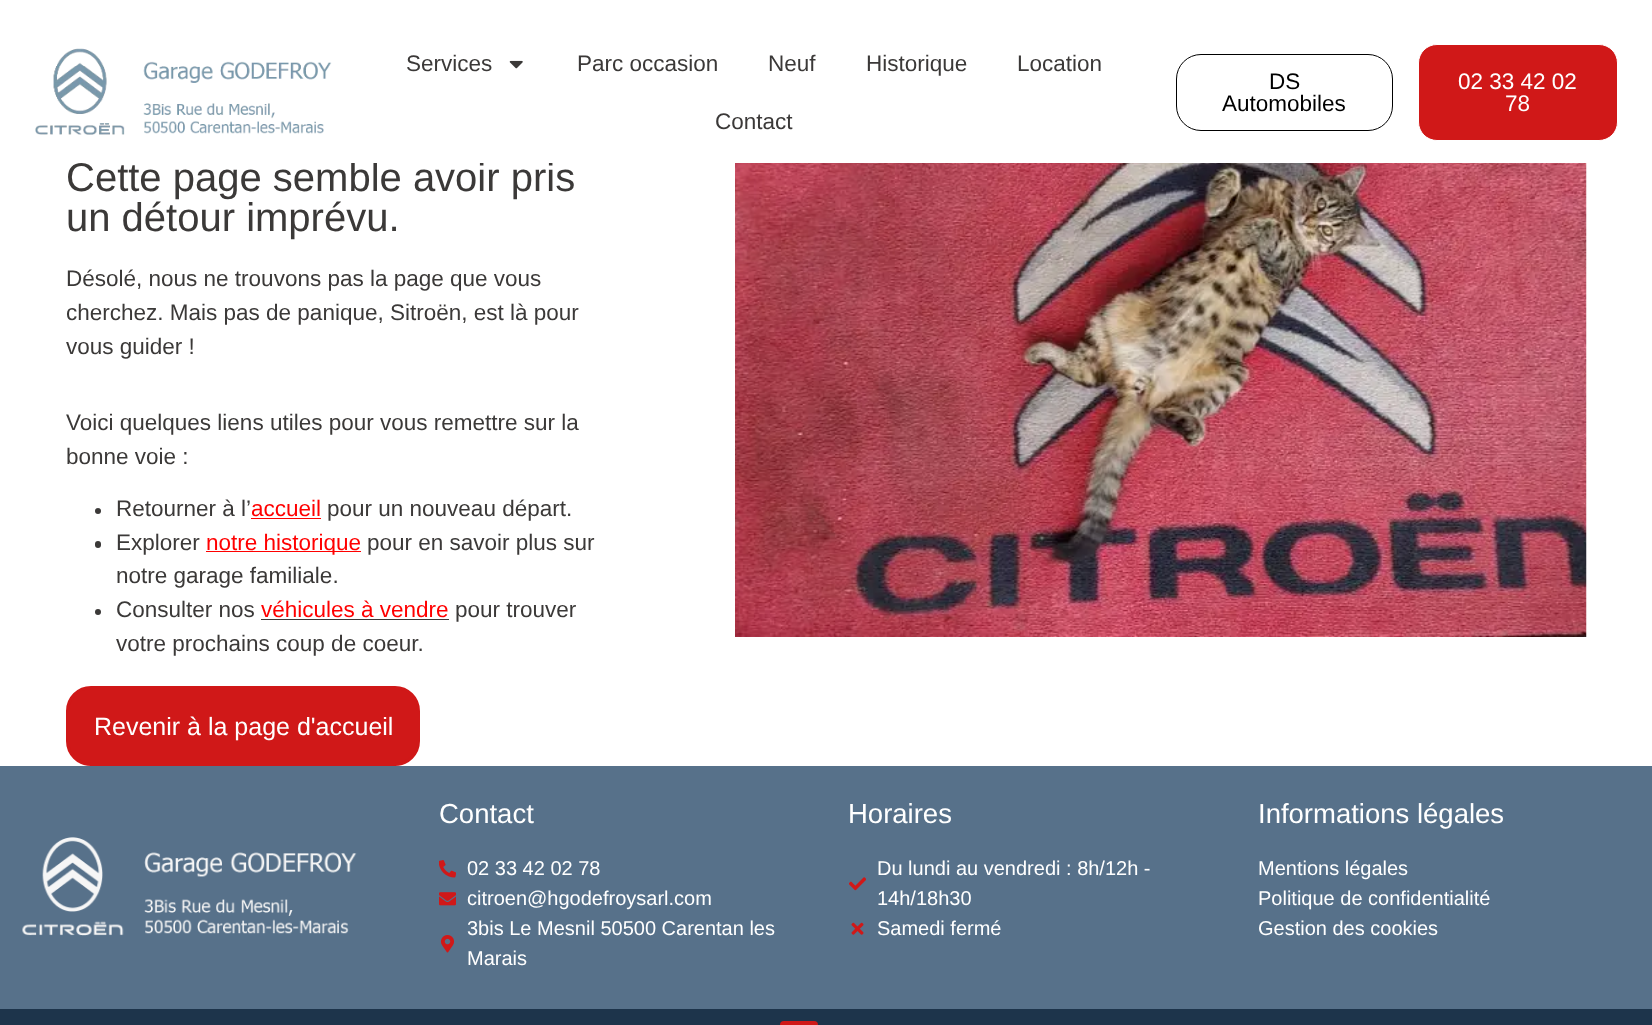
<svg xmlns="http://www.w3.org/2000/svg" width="1652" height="1025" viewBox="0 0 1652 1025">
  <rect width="100%" height="100%" fill="rgb(255,255,255)"/>
  <text x="66" y="191" font-family="Liberation Sans" font-size="40" fill="rgb(59,57,56)">Cette page semble avoir pris</text>
  <rect x="351" y="162" width="202" height="1" fill="rgb(255,255,255)"/>
  <image x="35" y="48" width="297" height="87" href="pic1.png"/>
  <text x="406" y="71" font-family="Liberation Sans" font-size="22.5" fill="rgb(59,57,56)">Services</text>
  <image x="509" y="60" width="14" height="9" href="pic2.png"/>
  <g font-family="Liberation Sans" font-size="22.5" fill="rgb(59,57,56)">
    <text x="577" y="71">Parc occasion</text>
    <text x="768" y="71">Neuf</text>
    <text x="866" y="71">Historique</text>
    <text x="1017" y="71">Location</text>
    <text x="715" y="129">Contact</text>
  </g>
  <rect x="1176.5" y="54.5" width="216" height="76" rx="24.5" fill="none" stroke="rgb(0,0,0)"/>
  <g font-family="Liberation Sans" font-size="22.5" fill="rgb(0,0,0)">
    <text x="1269" y="89">DS</text>
    <text x="1222" y="111">Automobiles</text>
  </g>
  <rect x="1418.5" y="44.5" width="199" height="96" rx="18.5" fill="rgb(208,24,24)" stroke="rgb(255,255,255)"/>
  <g font-family="Liberation Sans" font-size="22.5" fill="rgb(255,255,255)">
    <text x="1458" y="89">02 33 42 02</text>
    <text x="1505" y="111">78</text>
  </g>
  <text x="66" y="231" font-family="Liberation Sans" font-size="40" fill="rgb(59,57,56)">un détour imprévu.</text>
  <g font-family="Liberation Sans" font-size="22.5" fill="rgb(59,57,56)">
    <text>
      <tspan x="66" y="286">Désolé, nous ne trouvons pas la page que vous</tspan>
      <tspan x="66" y="320">cherchez. Mais pas de panique, Sitroën, est là pour</tspan>
      <tspan x="66" y="354">vous guider !</tspan>
    </text>
    <text>
      <tspan x="66" y="430">Voici quelques liens utiles pour vous remettre sur la</tspan>
      <tspan x="66" y="464">bonne voie :</tspan>
    </text>
  </g>
  <circle cx="98" cy="511" r="3" fill="rgb(59,57,56)"/>
  <text x="116" y="516" font-family="Liberation Sans" font-size="22.5" fill="rgb(59,57,56)">Retourner à l’</text>
  <text x="251" y="516" font-family="Liberation Sans" font-size="22.5" fill="rgb(255,0,0)">accueil</text>
  <rect x="251" y="518" width="70" height="1" fill="rgb(255,0,0)"/>
  <text x="327" y="516" font-family="Liberation Sans" font-size="22.5" fill="rgb(59,57,56)">pour un nouveau départ.</text>
  <rect x="95" y="541" width="6" height="7" rx="3" fill="rgb(59,57,56)"/>
  <text x="116" y="550" font-family="Liberation Sans" font-size="22.5" fill="rgb(59,57,56)">Explorer</text>
  <rect x="206" y="551" width="155" height="1" fill="rgb(255,0,0)"/>
  <text x="206" y="550" font-family="Liberation Sans" font-size="22.5" fill="rgb(255,0,0)">notre historique</text>
  <g font-family="Liberation Sans" font-size="22.5" fill="rgb(59,57,56)">
    <text x="367" y="550">pour en savoir plus sur</text>
    <text x="116" y="583">notre garage familiale.</text>
  </g>
  <circle cx="98" cy="612" r="3" fill="rgb(59,57,56)"/>
  <text x="116" y="617" font-family="Liberation Sans" font-size="22.5" fill="rgb(59,57,56)">Consulter nos</text>
  <text x="261" y="617" font-family="Liberation Sans" font-size="22.5" fill="rgb(255,0,0)">véhicules à vendre</text>
  <rect x="261" y="619" width="188" height="1" fill="rgb(59,57,56)"/>
  <g font-family="Liberation Sans" font-size="22.5" fill="rgb(59,57,56)">
    <text x="455" y="617">pour trouver</text>
    <text x="116" y="651">votre prochains coup de coeur.</text>
  </g>
  <rect x="67.5" y="687.5" width="351" height="77" rx="23.5" fill="rgb(208,24,24)" stroke="rgb(208,24,24)" stroke-width="3"/>
  <text x="94" y="735" font-family="Liberation Sans" font-size="25" fill="rgb(255,255,255)">Revenir à la page d'accueil</text>
  <image x="735" y="163" width="852" height="474" href="pic3.png"/>
  <rect x="0" y="766" width="1652" height="243" fill="rgb(87,113,138)"/>
  <image x="22" y="837" width="335" height="99" href="pic4.png"/>
  <text x="439" y="823" font-family="Liberation Sans" font-size="27.5" fill="rgb(255,255,255)">Contact</text>
  <image x="439" y="860" width="17" height="18" href="pic5.png"/>
  <text x="467" y="875" font-family="Liberation Sans" font-size="20" fill="rgb(255,255,255)">02 33 42 02 78</text>
  <image x="439" y="892" width="17" height="14" href="pic6.png"/>
  <text x="467" y="905" font-family="Liberation Sans" font-size="20" fill="rgb(255,255,255)">citroen@hgodefroysarl.com</text>
  <image x="440" y="935" width="15" height="18" href="pic7.png"/>
  <g font-family="Liberation Sans" font-size="20" fill="rgb(255,255,255)">
    <text>
      <tspan x="467" y="935">3bis Le Mesnil 50500 Carentan les</tspan>
      <tspan x="467" y="965">Marais</tspan>
    </text>
  </g>
  <text x="848" y="823" font-family="Liberation Sans" font-size="27.5" fill="rgb(255,255,255)">Horaires</text>
  <image x="849" y="877" width="17" height="14" href="pic8.png"/>
  <g font-family="Liberation Sans" font-size="20" fill="rgb(255,255,255)">
    <text>
      <tspan x="877" y="875">Du lundi au vendredi : 8h/12h -</tspan>
      <tspan x="877" y="905">14h/18h30</tspan>
    </text>
  </g>
  <image x="851" y="922" width="13" height="13" href="pic9.png"/>
  <text x="877" y="935" font-family="Liberation Sans" font-size="20" fill="rgb(255,255,255)">Samedi fermé</text>
  <text x="1258" y="823" font-family="Liberation Sans" font-size="27.5" fill="rgb(255,255,255)">Informations légales</text>
  <g font-family="Liberation Sans" font-size="20" fill="rgb(255,255,255)">
    <text>
      <tspan x="1258" y="875">Mentions légales</tspan>
      <tspan x="1258" y="905">Politique de confidentialité</tspan>
      <tspan x="1258" y="935">Gestion des cookies</tspan>
    </text>
  </g>
  <rect x="0" y="1009" width="1652" height="16" fill="rgb(29,52,75)"/>
  <rect x="780" y="1021" width="38" height="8" rx="4" fill="rgb(208,24,24)"/>
</svg>
